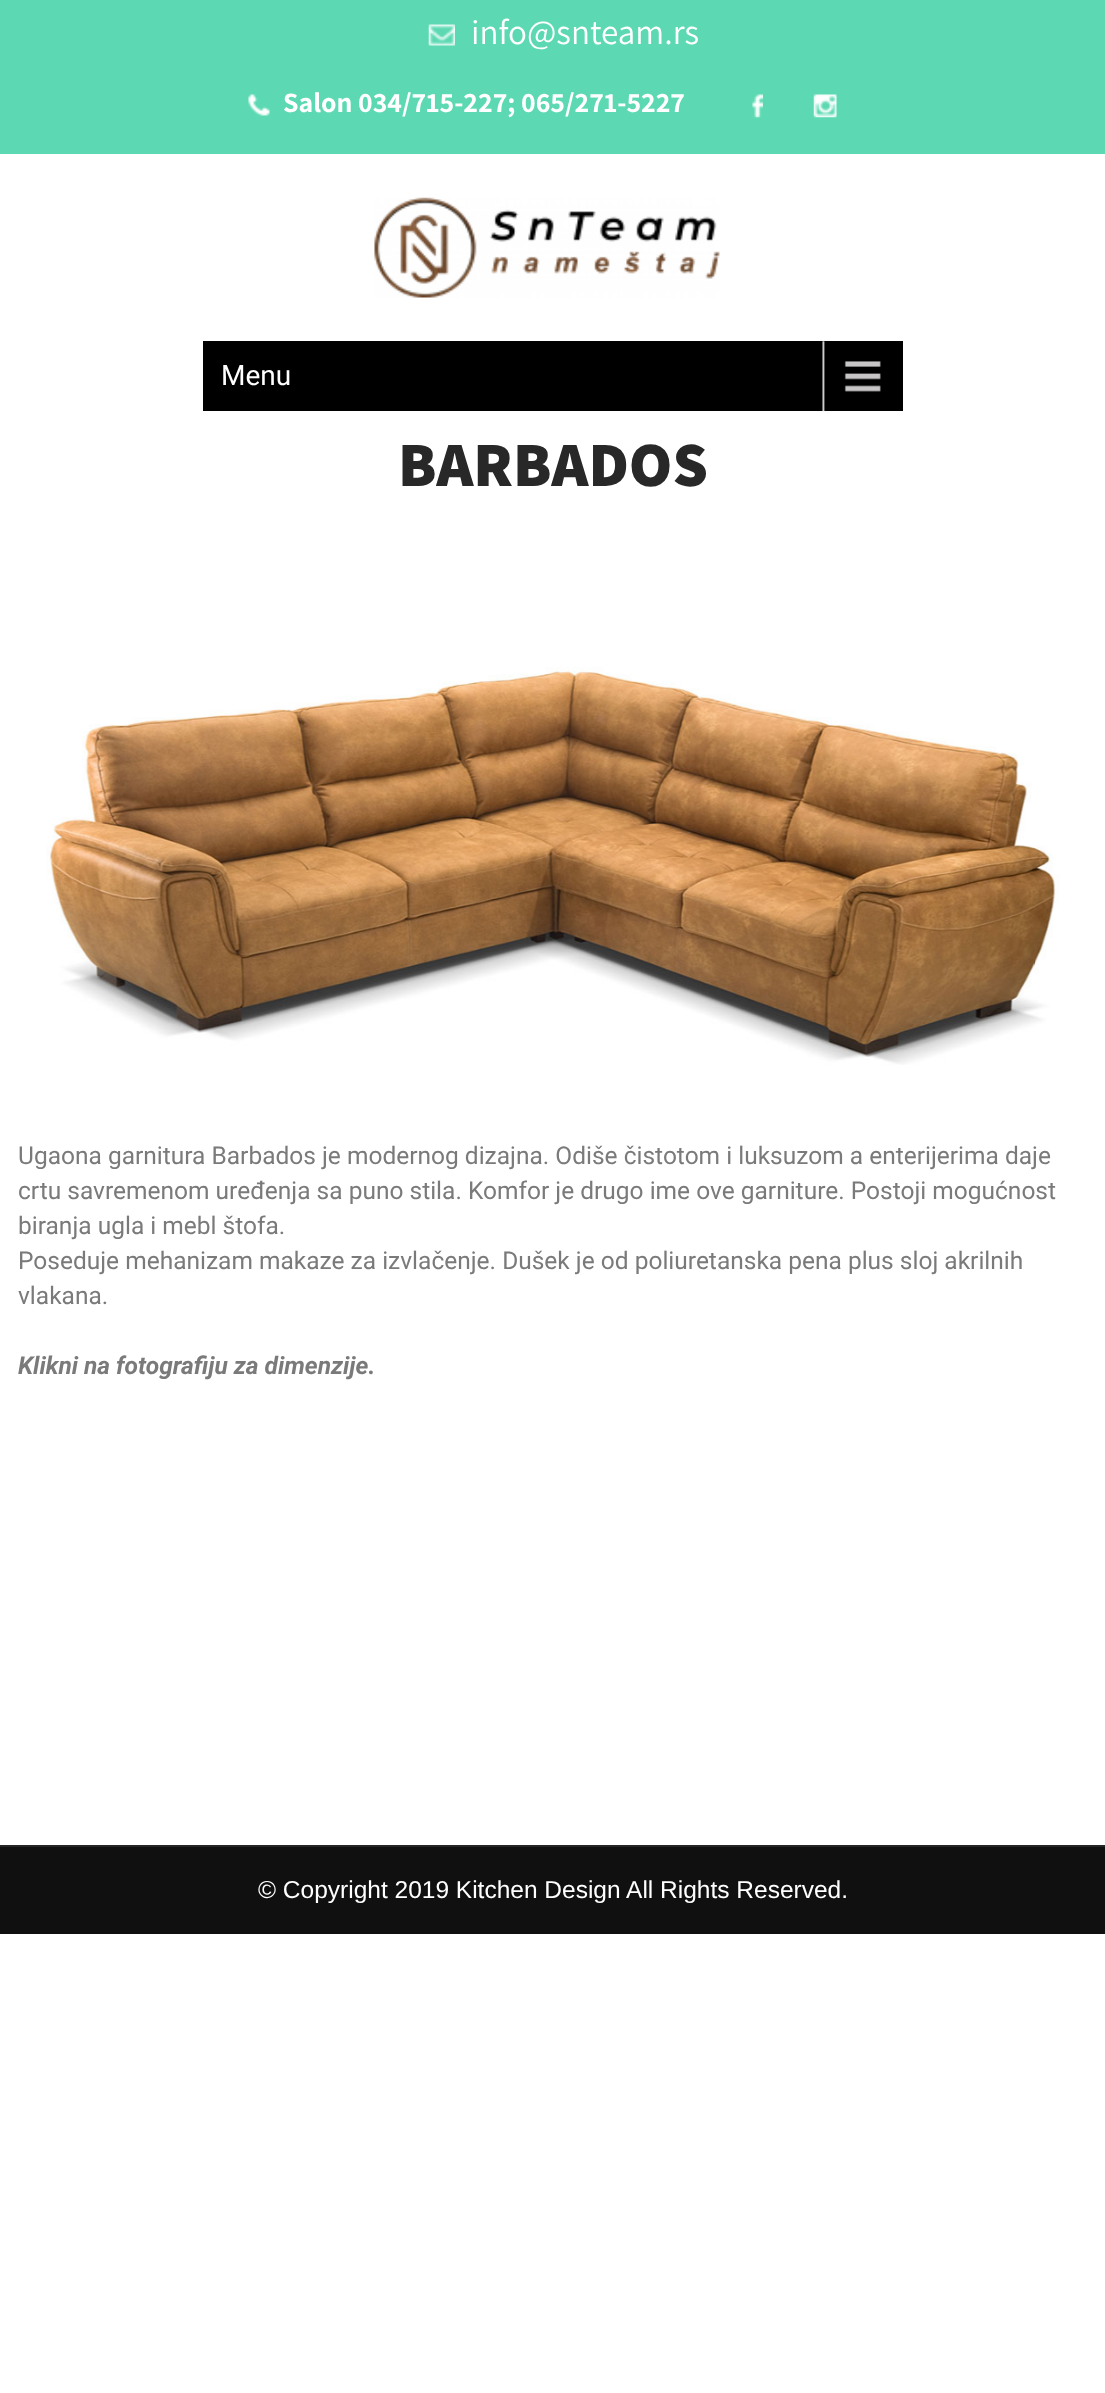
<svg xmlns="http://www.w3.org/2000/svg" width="1105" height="2393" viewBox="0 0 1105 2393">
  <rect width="100%" height="100%" fill="rgb(255,255,255)"/>
  <rect x="0" y="0" width="1105" height="154" fill="rgb(92,217,178)"/>
  <image x="428" y="24" width="27" height="22" href="pic1.png"/>
  <text x="471" y="44" font-family="Assistant" font-size="35" fill="rgb(255,255,255)">info@snteam.rs</text>
  <image x="248" y="94" width="22" height="22" href="pic2.png"/>
  <text x="283" y="112" font-family="Assistant" font-size="28" font-weight="bold" fill="rgb(255,255,255)">Salon 034/715-227; 065/271-5227</text>
  <image x="752" y="94" width="11" height="24" href="pic3.png"/>
  <image x="813" y="94" width="24" height="24" href="pic4.png"/>
  <image x="374" y="197" width="346" height="101" href="pic5.png"/>
  <rect x="203" y="341" width="700" height="70" fill="rgb(0,0,0)"/>
  <image x="822" y="341" width="59" height="71" href="pic6.png"/>
  <text x="221" y="385" font-family="Roboto" font-size="28" fill="rgb(255,255,255)">Menu</text>
  <text x="398" y="486" font-family="Assistant" font-size="63" font-weight="800" fill="rgb(40,40,40)">BARBADOS</text>
  <image x="46" y="667" width="1014" height="398" href="pic7.png"/>
  <g font-family="Roboto" font-size="24.5" fill="rgb(122,122,122)">
    <text>
      <tspan x="18" y="1164">Ugaona garnitura Barbados je modernog dizajna. Odiše čistotom i luksuzom a enterijerima daje</tspan>
      <tspan x="18" y="1199">crtu savremenom uređenja sa puno stila. Komfor je drugo ime ove garniture. Postoji mogućnost</tspan>
      <tspan x="18" y="1234">biranja ugla i mebl štofa.</tspan>
      <tspan x="18" y="1269">Poseduje mehanizam makaze za izvlačenje. Dušek je od poliuretanska pena plus sloj akrilnih</tspan>
      <tspan x="18" y="1304">vlakana.</tspan>
    </text>
  </g>
  <text x="18" y="1374" font-family="Roboto" font-size="24.5" font-weight="bold" font-style="italic" fill="rgb(122,122,122)">Klikni na fotografiju za dimenzije.</text>
  <rect x="0" y="1847" width="1105" height="87" fill="rgb(16,16,16)"/>
  <rect x="0" y="1845" width="1105" height="2" fill="rgb(37,37,37)"/>
  <text x="258" y="1898" font-family="Liberation Sans" font-size="24.5" fill="rgb(255,255,255)">© Copyright 2019 Kitchen Design All Rights Reserved.</text>
</svg>
